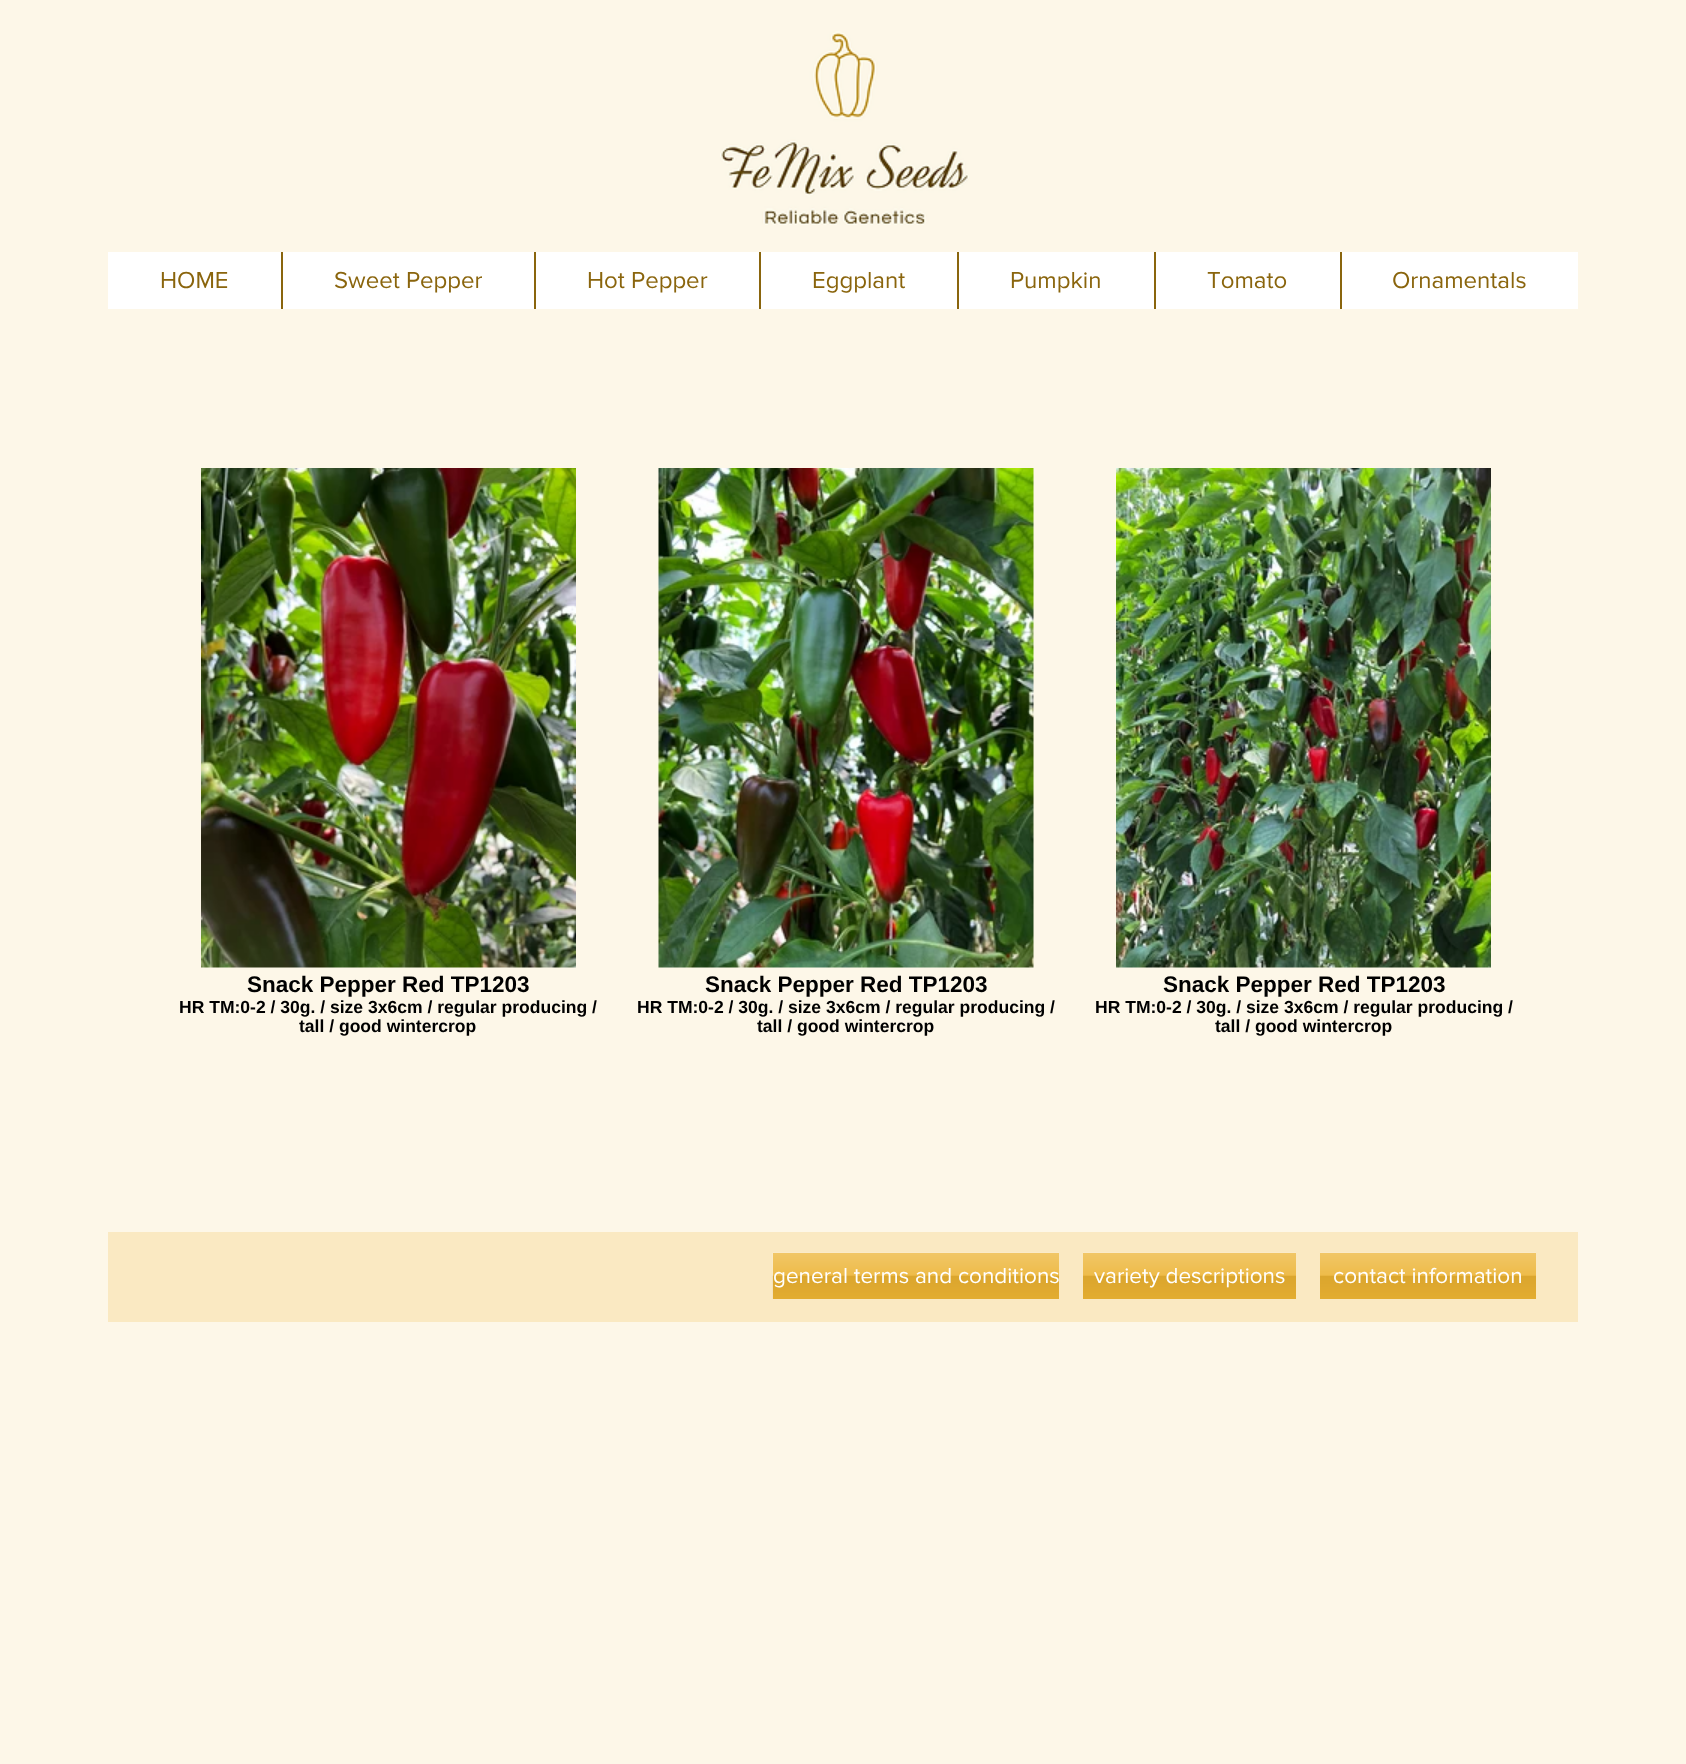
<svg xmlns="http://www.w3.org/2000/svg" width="1686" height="1764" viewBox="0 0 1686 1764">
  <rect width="100%" height="100%" fill="rgb(253,247,232)"/>
  <image x="720" y="31" width="249" height="194" href="pic1.png"/>
  <rect x="108" y="252" width="1470" height="57" fill="rgb(255,255,255)"/>
  <text x="160" y="288" font-family="'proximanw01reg'" font-size="24" fill="rgb(138,101,13)">HOME</text>
  <rect x="281" y="252" width="2" height="57" fill="rgb(138,101,13)"/>
  <text x="334" y="288" font-family="'proximanw01reg'" font-size="24" fill="rgb(138,101,13)">Sweet Pepper</text>
  <rect x="534" y="252" width="2" height="57" fill="rgb(138,101,13)"/>
  <text x="587" y="288" font-family="'proximanw01reg'" font-size="24" fill="rgb(138,101,13)">Hot Pepper</text>
  <rect x="759" y="252" width="2" height="57" fill="rgb(138,101,13)"/>
  <text x="812" y="288" font-family="'proximanw01reg'" font-size="24" fill="rgb(138,101,13)">Eggplant</text>
  <rect x="957" y="252" width="2" height="57" fill="rgb(138,101,13)"/>
  <text x="1010" y="288" font-family="'proximanw01reg'" font-size="24" fill="rgb(138,101,13)">Pumpkin</text>
  <rect x="1154" y="252" width="2" height="57" fill="rgb(138,101,13)"/>
  <text x="1207" y="288" font-family="'proximanw01reg'" font-size="24" fill="rgb(138,101,13)">Tomato</text>
  <rect x="1340" y="252" width="2" height="57" fill="rgb(138,101,13)"/>
  <text x="1392" y="288" font-family="'proximanw01reg'" font-size="24" fill="rgb(138,101,13)">Ornamentals</text>
  <image x="201" y="468" width="375" height="500" href="pic2.png"/>
  <text x="247" y="992" font-family="Liberation Sans" font-size="22.5" font-weight="bold" fill="rgb(0,0,0)">Snack Pepper Red TP1203</text>
  <g font-family="Liberation Sans" font-size="17.55" font-weight="bold" fill="rgb(0,0,0)">
    <text x="179" y="1013">HR TM:0-2 / 30g. / size 3x6cm / regular producing /</text>
    <text x="299" y="1032">tall / good wintercrop</text>
  </g>
  <image x="658" y="468" width="376" height="500" href="pic3.png"/>
  <text x="705" y="992" font-family="Liberation Sans" font-size="22.5" font-weight="bold" fill="rgb(0,0,0)">Snack Pepper Red TP1203</text>
  <g font-family="Liberation Sans" font-size="17.55" font-weight="bold" fill="rgb(0,0,0)">
    <text x="637" y="1013">HR TM:0-2 / 30g. / size 3x6cm / regular producing /</text>
    <text x="757" y="1032">tall / good wintercrop</text>
  </g>
  <image x="1116" y="468" width="375" height="500" href="pic4.png"/>
  <text x="1163" y="992" font-family="Liberation Sans" font-size="22.5" font-weight="bold" fill="rgb(0,0,0)">Snack Pepper Red TP1203</text>
  <g font-family="Liberation Sans" font-size="17.55" font-weight="bold" fill="rgb(0,0,0)">
    <text x="1095" y="1013">HR TM:0-2 / 30g. / size 3x6cm / regular producing /</text>
    <text x="1215" y="1032">tall / good wintercrop</text>
  </g>
  <rect x="108" y="1232" width="1470" height="90" fill="rgb(250,233,194)"/>
  <rect x="773" y="1253" width="286" height="46" fill="rgb(236,179,50)"/>
  <image x="772" y="1252" width="287" height="47" href="pic5.png"/>
  <text x="773" y="1283" font-family="'proximanw01reg'" font-size="22.5" fill="rgb(255,255,255)">general terms and conditions</text>
  <rect x="1083" y="1253" width="213" height="46" fill="rgb(236,179,50)"/>
  <image x="1083" y="1252" width="213" height="47" href="pic6.png"/>
  <text x="1094" y="1283" font-family="'proximanw01reg'" font-size="22.5" fill="rgb(255,255,255)">variety descriptions</text>
  <rect x="1320" y="1253" width="216" height="46" fill="rgb(236,179,50)"/>
  <image x="1320" y="1252" width="216" height="47" href="pic7.png"/>
  <text x="1333" y="1283" font-family="'proximanw01reg'" font-size="22.5" fill="rgb(255,255,255)">contact information</text>
</svg>
